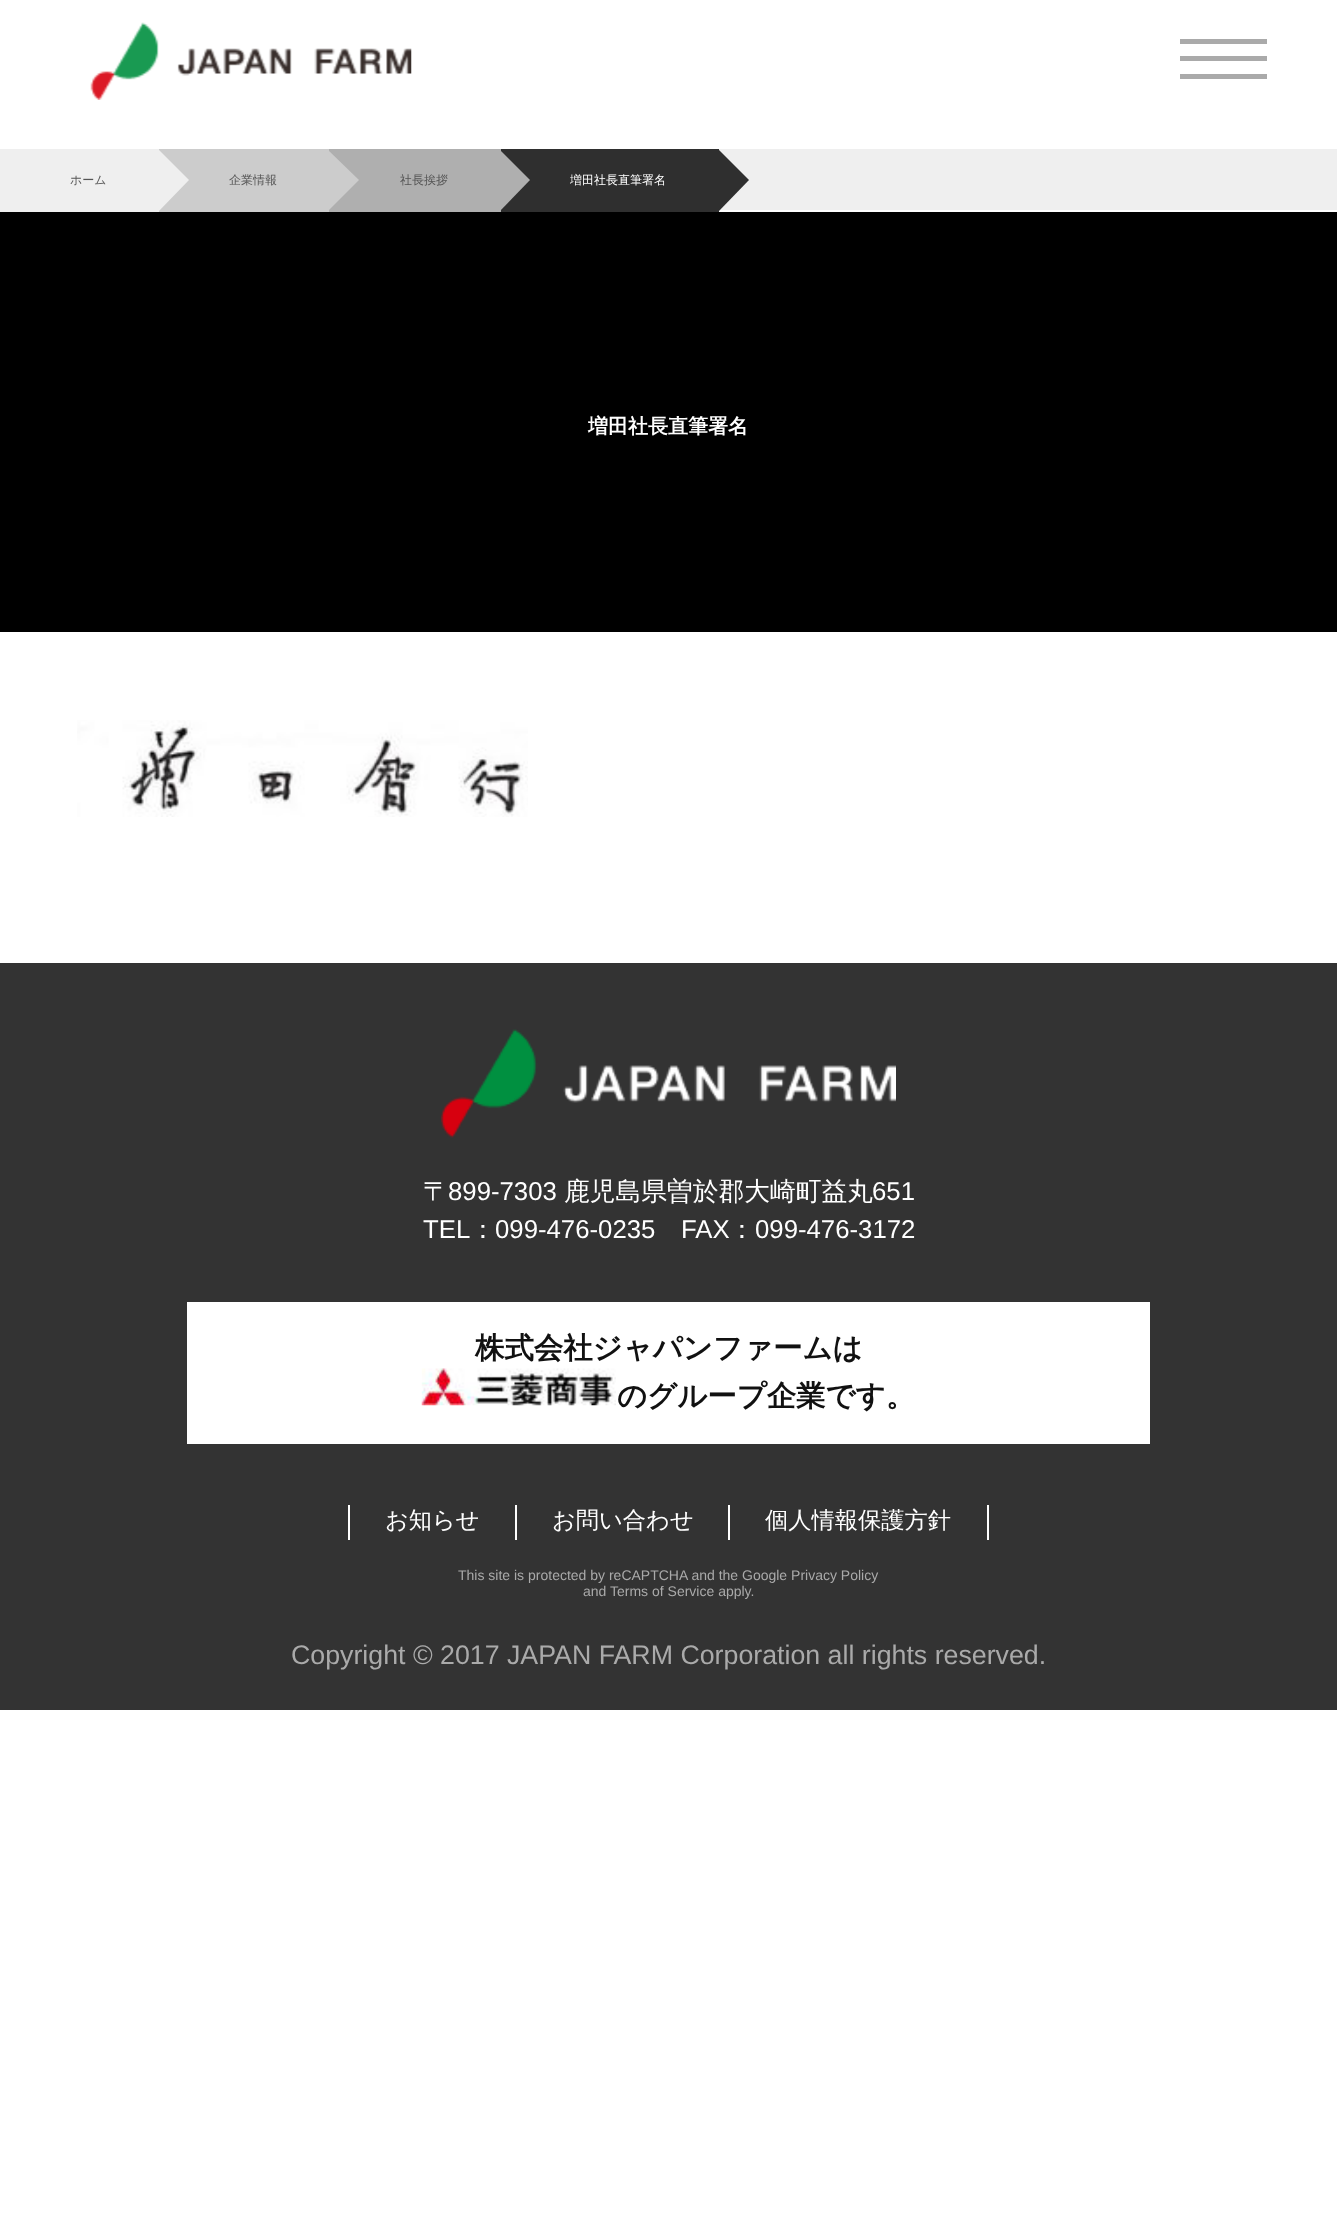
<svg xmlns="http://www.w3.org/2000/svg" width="1337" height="2221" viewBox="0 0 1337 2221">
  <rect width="100%" height="100%" fill="rgb(255,255,255)"/>
  <image x="90" y="22" width="322" height="78" href="pic1.png"/>
  <rect x="1180" y="39" width="87" height="5" fill="rgb(170,170,170)"/>
  <rect x="1180" y="56" width="87" height="5" fill="rgb(170,170,170)"/>
  <rect x="1180" y="74" width="87" height="5" fill="rgb(170,170,170)"/>
  <rect x="719" y="149" width="618" height="61" fill="rgb(239,239,239)"/>
  <rect x="0" y="149" width="159" height="63" fill="rgb(239,239,239)"/>
  <text x="70" y="184" font-family="WenQuanYi Zen Hei" font-size="12" font-weight="500" fill="rgb(85,85,85)">ホーム</text>
  <rect x="159" y="149" width="170" height="63" fill="rgb(204,204,204)"/>
  <path d="M158 212V149L189 180Z" fill="rgb(239,239,239)"/>
  <text x="229" y="184" font-family="WenQuanYi Zen Hei" font-size="12" font-weight="500" fill="rgb(85,85,85)">企業情報</text>
  <rect x="329" y="149" width="172" height="63" fill="rgb(175,175,175)"/>
  <path d="M327 212V149L359 180Z" fill="rgb(204,204,204)"/>
  <text x="400" y="184" font-family="WenQuanYi Zen Hei" font-size="12" font-weight="500" fill="rgb(85,85,85)">社長挨拶</text>
  <rect x="501" y="149" width="218" height="63" fill="rgb(47,47,47)"/>
  <path d="M499 212V149L530 180Z" fill="rgb(175,175,175)"/>
  <text x="570" y="184" font-family="WenQuanYi Zen Hei" font-size="12" font-weight="500" fill="rgb(255,255,255)">増田社長直筆署名</text>
  <path d="M718 212V149L749 180Z" fill="rgb(47,47,47)"/>
  <rect x="0" y="212" width="1337" height="420" fill="rgb(0,0,0)"/>
  <text x="588" y="433" font-family="WenQuanYi Zen Hei" font-size="20" font-weight="bold" fill="rgb(255,255,255)">増田社長直筆署名</text>
  <image x="77" y="720" width="451" height="97" href="pic2.png"/>
  <rect x="0" y="963" width="1337" height="747" fill="rgb(51,51,51)"/>
  <image x="441" y="1029" width="455" height="109" href="pic3.png"/>
  <text x="423" y="1200" font-family="WenQuanYi Zen Hei" font-size="25.75" font-weight="500" fill="rgb(255,255,255)">〒</text>
  <text x="448" y="1200" font-family="Liberation Sans" font-size="25.75" fill="rgb(255,255,255)">899-7303</text>
  <text x="564" y="1200" font-family="WenQuanYi Zen Hei" font-size="25.75" font-weight="500" fill="rgb(255,255,255)">鹿児島県曽於郡大崎町益丸</text>
  <g font-family="Liberation Sans" font-size="25.75" fill="rgb(255,255,255)">
    <text x="872" y="1200">651</text>
    <text x="423" y="1238">TEL</text>
  </g>
  <text x="470" y="1238" font-family="WenQuanYi Zen Hei" font-size="25.75" font-weight="500" fill="rgb(255,255,255)">：</text>
  <g font-family="Liberation Sans" font-size="25.75" fill="rgb(255,255,255)">
    <text x="495" y="1238">099-476-0235</text>
    <text x="681" y="1238">FAX</text>
  </g>
  <text x="729" y="1238" font-family="WenQuanYi Zen Hei" font-size="25.75" font-weight="500" fill="rgb(255,255,255)">：</text>
  <text x="755" y="1238" font-family="Liberation Sans" font-size="25.75" fill="rgb(255,255,255)">099-476-3172</text>
  <rect x="187" y="1302" width="963" height="142" fill="rgb(255,255,255)"/>
  <text x="475" y="1358" font-family="WenQuanYi Zen Hei" font-size="29.4" font-weight="bold" fill="rgb(17,17,17)">株式会社ジャパンファームは</text>
  <image x="421" y="1368" width="195" height="38" href="pic4.png"/>
  <text x="617" y="1406" font-family="WenQuanYi Zen Hei" font-size="29.4" font-weight="bold" fill="rgb(17,17,17)">のグループ企業です。</text>
  <rect x="348" y="1505" width="2" height="35" fill="rgb(255,255,255)"/>
  <text x="385" y="1528" font-family="WenQuanYi Zen Hei" font-size="23.25" font-weight="500" fill="rgb(255,255,255)">お知らせ</text>
  <rect x="515" y="1505" width="2" height="35" fill="rgb(255,255,255)"/>
  <text x="552" y="1528" font-family="WenQuanYi Zen Hei" font-size="23.25" font-weight="500" fill="rgb(255,255,255)">お問い合わせ</text>
  <rect x="987" y="1505" width="2" height="35" fill="rgb(255,255,255)"/>
  <rect x="728" y="1505" width="2" height="35" fill="rgb(255,255,255)"/>
  <text x="765" y="1528" font-family="WenQuanYi Zen Hei" font-size="23.25" font-weight="500" fill="rgb(255,255,255)">個人情報保護方針</text>
  <g font-family="Liberation Sans" font-size="14" fill="rgb(170,170,170)">
    <text x="458" y="1580">This site is protected by reCAPTCHA and the Google Privacy Policy</text>
    <text x="583" y="1596">and Terms of Service apply.</text>
  </g>
  <text x="291" y="1664" font-family="Liberation Sans" font-size="26.75" fill="rgb(170,170,170)">Copyright © 2017 JAPAN FARM Corporation all rights reserved.</text>
</svg>
